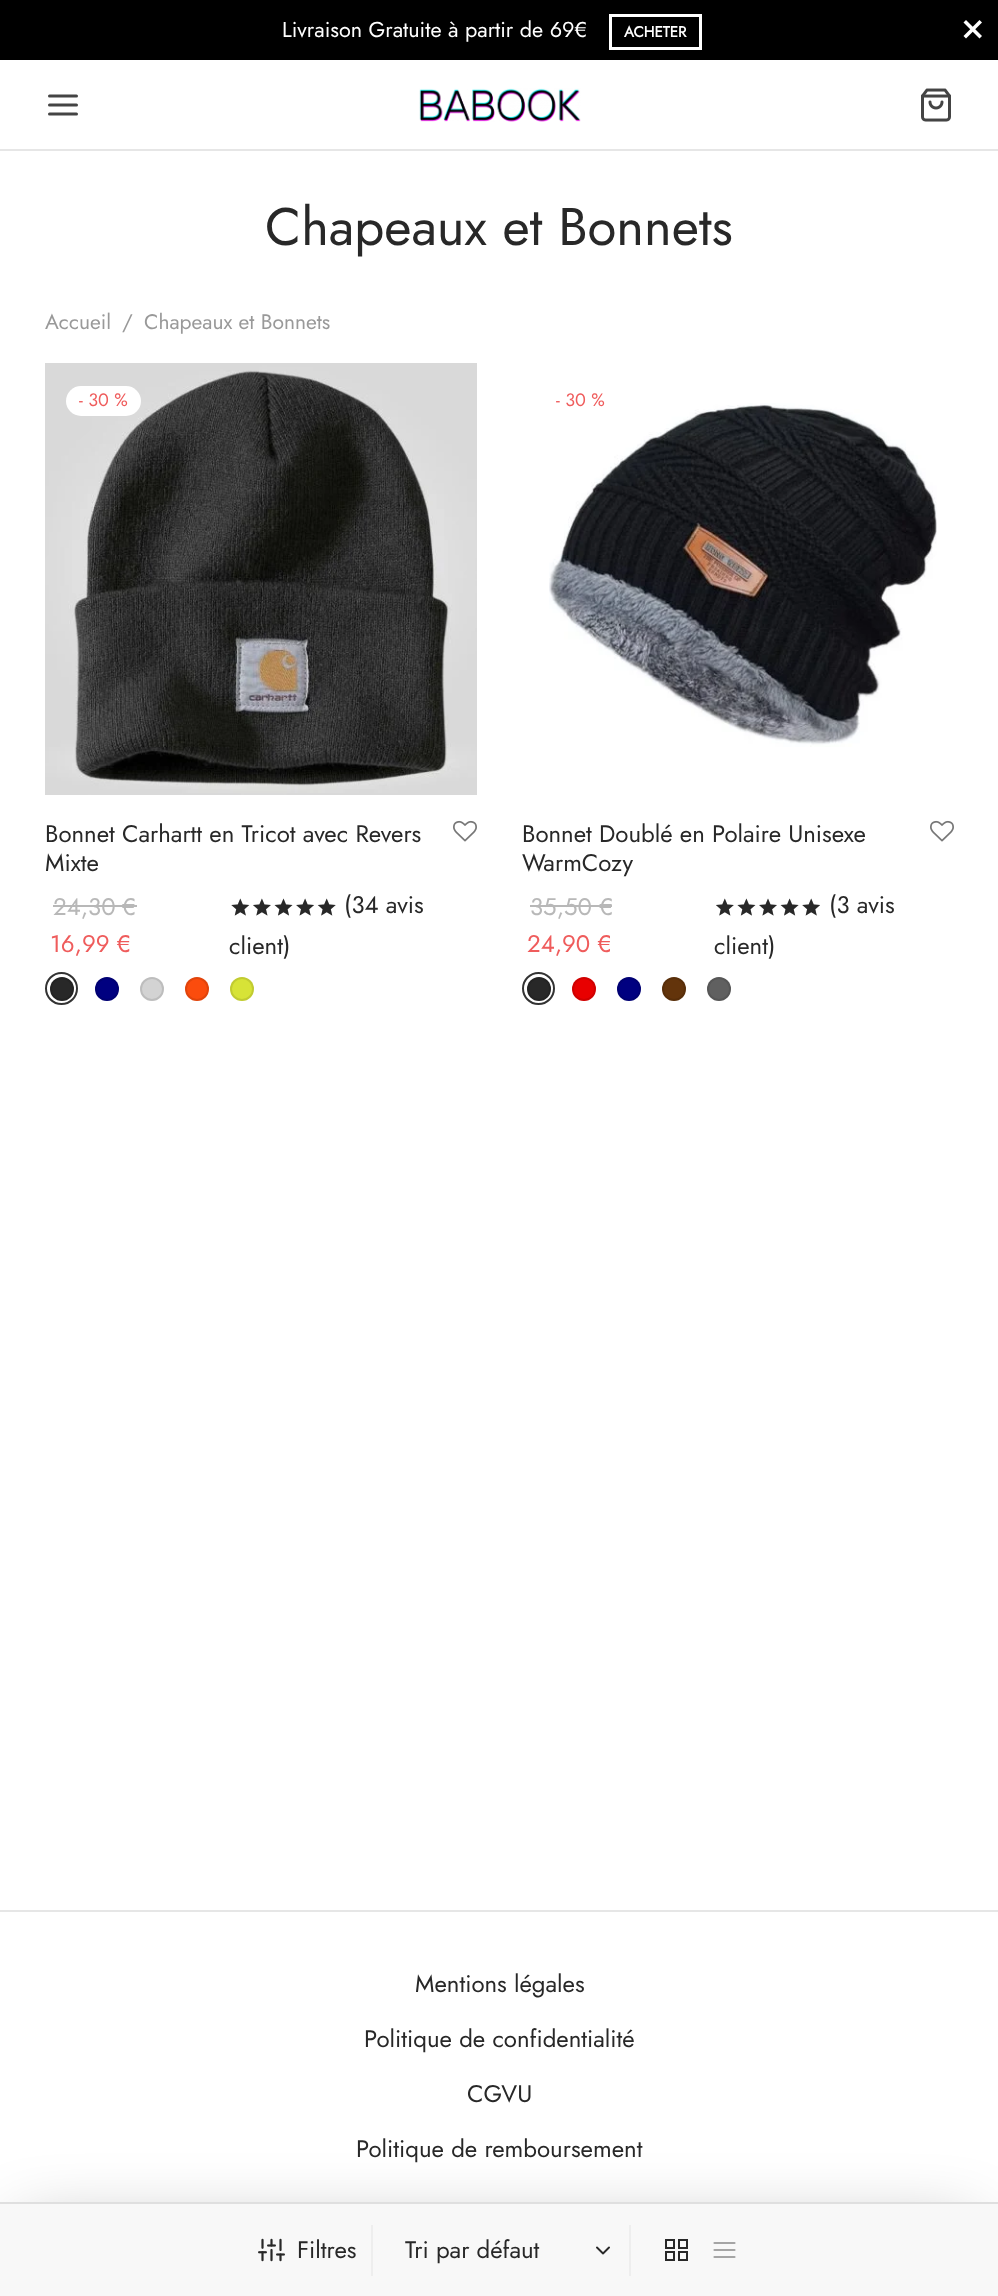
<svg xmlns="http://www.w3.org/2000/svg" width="998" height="2296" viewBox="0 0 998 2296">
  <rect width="100%" height="100%" fill="rgb(255,255,255)"/>
  <rect x="0" y="0" width="998" height="60" fill="rgb(0,0,0)"/>
  <text x="282" y="37" font-family="Jost" font-size="21.6" fill="rgb(255,255,255)">Livraison Gratuite à partir de 69€</text>
  <rect x="610.5" y="15.5" width="90" height="33" fill="none" stroke="rgb(255,255,255)" stroke-width="3"/>
  <text x="624" y="37" font-family="Jost" font-size="15" font-weight="bold" fill="rgb(255,255,255)">ACHETER</text>
  <path d="M966 20L982 36L979.5 38.5L963.5 22.5Z" fill="rgb(255,255,255)"/>
  <path d="M963.5 36L979.5 20L982 22.5L966 38.5Z" fill="rgb(255,255,255)"/>
  <path d="M49.5 105H76.5M49.5 96H76.5M49.5 114H76.5" fill="none" stroke="rgb(68,68,68)" stroke-width="3" stroke-linecap="round" stroke-linejoin="round"/>
  <image x="419" y="88" width="162" height="34" href="pic1.png"/>
  <image x="921" y="88" width="30" height="34" href="pic2.png"/>
  <rect x="0" y="149" width="998" height="2" fill="rgb(230,230,230)"/>
  <text x="265" y="245" font-family="Jost" font-size="52.75" fill="rgb(40,40,40)">Chapeaux et Bonnets</text>
  <g font-family="Jost" font-size="21" fill="rgb(153,153,153)">
    <text x="45" y="329">Accueil</text>
    <text x="122" y="329">/</text>
    <text x="144" y="329">Chapeaux et Bonnets</text>
  </g>
  <rect x="20" y="2228" width="954" height="49" fill="rgba(0,0,0,0.3)" filter="blur(34px)"/>
  <rect x="0" y="2204" width="998" height="92" fill="rgb(248,248,248)"/>
  <rect x="0" y="2202" width="998" height="2" fill="rgb(223,223,223)"/>
  <rect x="371" y="2225" width="2" height="51" fill="rgb(238,238,238)"/>
  <image x="258" y="2238" width="27" height="24" href="pic3.png"/>
  <g font-family="Jost" font-size="24" fill="rgb(40,40,40)">
    <text x="297" y="2258">Filtres</text>
    <text x="405" y="2258">Tri par défaut</text>
  </g>
  <image x="596" y="2246" width="14" height="9" href="pic4.png"/>
  <rect x="629" y="2225" width="2" height="51" fill="rgb(238,238,238)"/>
  <rect x="666" y="2240" width="8" height="8" fill="none" stroke="rgb(40,40,40)" stroke-width="2"/>
  <rect x="679" y="2240" width="8" height="8" fill="none" stroke="rgb(40,40,40)" stroke-width="2"/>
  <rect x="666" y="2252" width="8" height="8" fill="none" stroke="rgb(40,40,40)" stroke-width="2"/>
  <rect x="679" y="2252" width="8" height="8" fill="none" stroke="rgb(40,40,40)" stroke-width="2"/>
  <path d="M714.5 2250H734.5M714.5 2243H734.5M714.5 2257H734.5" fill="none" stroke="rgb(165,165,165)" stroke-width="2.2" stroke-linecap="round" stroke-linejoin="round"/>
  <image x="45" y="363" width="432" height="432" href="pic5.png"/>
  <rect x="66" y="386" width="75" height="30" rx="15" fill="rgb(255,255,255)"/>
  <text x="79" y="406" font-family="Jost" font-size="18" fill="rgb(239,92,92)">- 30 %</text>
  <g font-family="Jost" font-size="24" fill="rgb(40,40,40)">
    <text>
      <tspan x="45" y="842">Bonnet Carhartt en Tricot avec Revers</tspan>
      <tspan x="45" y="871">Mixte</tspan>
    </text>
  </g>
  <image x="453" y="820" width="24" height="22" href="pic6.png"/>
  <text x="53" y="915" font-family="Jost" font-size="24" fill="rgb(184,184,184)">24,30</text>
  <rect x="53" y="905" width="70" height="2" fill="rgb(184,184,184)"/>
  <text x="122" y="915" font-family="Jost" font-size="24" fill="rgb(184,184,184)">€</text>
  <rect x="123" y="905" width="14" height="2" fill="rgb(184,184,184)"/>
  <text x="50" y="952" font-family="Jost" font-size="24" fill="rgb(239,92,92)">16,99 €</text>
  <image x="231" y="898" width="105" height="18" href="pic7.png"/>
  <image x="231" y="898" width="105" height="18" href="pic8.png"/>
  <g font-family="Jost" font-size="24" fill="rgb(40,40,40)">
    <text x="344" y="913">(34 avis</text>
    <text x="229" y="954">client)</text>
  </g>
  <circle cx="61.5" cy="988.5" r="15.5" fill="none" stroke="rgb(51,51,51)" stroke-width="2"/>
  <circle cx="62" cy="989" r="12" fill="rgb(40,40,40)"/>
  <circle cx="62" cy="989" r="11" fill="none" stroke="rgba(0,0,0,0.1)" stroke-width="2"/>
  <circle cx="107" cy="989" r="12" fill="rgb(0,0,128)"/>
  <circle cx="107" cy="989" r="11" fill="none" stroke="rgba(0,0,0,0.1)" stroke-width="2"/>
  <circle cx="152" cy="989" r="12" fill="rgb(211,211,211)"/>
  <circle cx="152" cy="989" r="11" fill="none" stroke="rgba(0,0,0,0.1)" stroke-width="2"/>
  <circle cx="197" cy="989" r="12" fill="rgb(251,76,13)"/>
  <circle cx="197" cy="989" r="11" fill="none" stroke="rgba(0,0,0,0.1)" stroke-width="2"/>
  <circle cx="242" cy="989" r="12" fill="rgb(215,227,55)"/>
  <circle cx="242" cy="989" r="11" fill="none" stroke="rgba(0,0,0,0.1)" stroke-width="2"/>
  <image x="549" y="403" width="388" height="344" href="pic9.png"/>
  <text x="556" y="406" font-family="Jost" font-size="18" fill="rgb(239,92,92)">- 30 %</text>
  <g font-family="Jost" font-size="24" fill="rgb(40,40,40)">
    <text>
      <tspan x="522" y="842">Bonnet Doublé en Polaire Unisexe</tspan>
      <tspan x="522" y="871">WarmCozy</tspan>
    </text>
  </g>
  <image x="930" y="820" width="24" height="22" href="pic6.png"/>
  <text x="530" y="915" font-family="Jost" font-size="24" fill="rgb(184,184,184)">35,50 €</text>
  <rect x="530" y="905" width="82" height="2" fill="rgb(184,184,184)"/>
  <text x="527" y="952" font-family="Jost" font-size="24" fill="rgb(239,92,92)">24,90 €</text>
  <image x="716" y="898" width="104" height="18" href="pic10.png"/>
  <image x="716" y="898" width="104" height="18" href="pic11.png"/>
  <g font-family="Jost" font-size="24" fill="rgb(40,40,40)">
    <text x="829" y="913">(3 avis</text>
    <text x="714" y="954">client)</text>
  </g>
  <circle cx="538.5" cy="988.5" r="15.5" fill="none" stroke="rgb(51,51,51)" stroke-width="2"/>
  <circle cx="539" cy="989" r="12" fill="rgb(40,40,40)"/>
  <circle cx="539" cy="989" r="11" fill="none" stroke="rgba(0,0,0,0.1)" stroke-width="2"/>
  <circle cx="584" cy="989" r="12" fill="rgb(232,0,0)"/>
  <circle cx="584" cy="989" r="11" fill="none" stroke="rgba(0,0,0,0.1)" stroke-width="2"/>
  <circle cx="629" cy="989" r="12" fill="rgb(0,0,128)"/>
  <circle cx="629" cy="989" r="11" fill="none" stroke="rgba(0,0,0,0.1)" stroke-width="2"/>
  <circle cx="674" cy="989" r="12" fill="rgb(99,52,11)"/>
  <circle cx="674" cy="989" r="11" fill="none" stroke="rgba(0,0,0,0.1)" stroke-width="2"/>
  <circle cx="719" cy="989" r="12" fill="rgb(96,96,96)"/>
  <circle cx="719" cy="989" r="11" fill="none" stroke="rgba(0,0,0,0.1)" stroke-width="2"/>
  <rect x="0" y="1910" width="998" height="2" fill="rgb(230,230,230)"/>
  <g font-family="Jost" font-size="24" fill="rgb(40,40,40)">
    <text x="415" y="1992">Mentions légales</text>
    <text x="364" y="2047">Politique de confidentialité</text>
    <text x="467" y="2102">CGVU</text>
    <text x="356" y="2157">Politique de remboursement</text>
  </g>
</svg>
